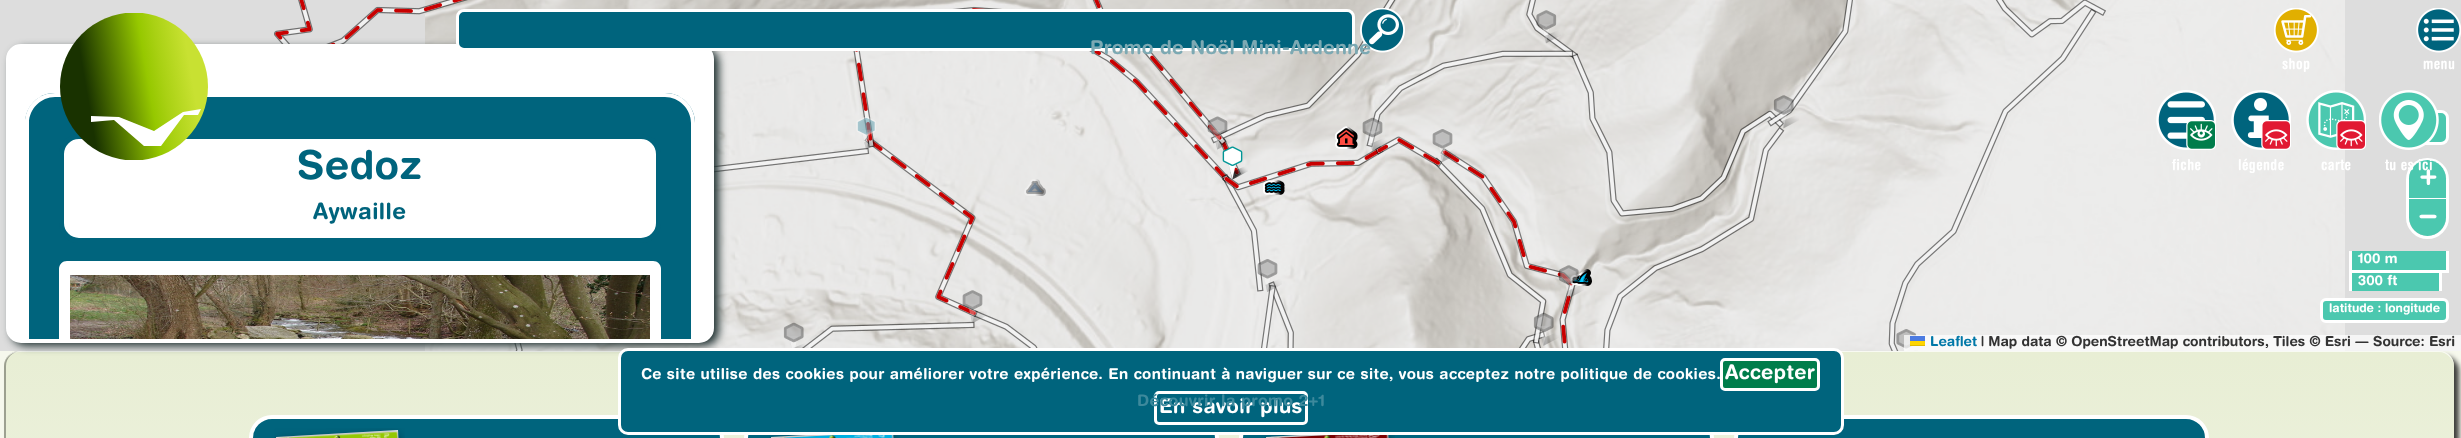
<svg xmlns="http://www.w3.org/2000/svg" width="2461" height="438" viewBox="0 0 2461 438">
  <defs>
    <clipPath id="clip1"><path d="M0 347H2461V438H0ZM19 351H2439C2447.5 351 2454 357.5 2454 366V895H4V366C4 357.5 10.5 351 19 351Z" clip-rule="evenodd"/></clipPath>
    <linearGradient id="g1" gradientUnits="userSpaceOnUse" x1="1229" y1="351" x2="1229" y2="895"><stop offset="0" stop-color="rgb(225,233,200)" stop-opacity="0.67"/><stop offset="1" stop-color="rgb(255,255,255)"/></linearGradient>
    <clipPath id="clip2"><rect x="60" y="13" width="148" height="147"/></clipPath>
    <linearGradient id="g2" gradientUnits="userSpaceOnUse" x1="210" y1="73" x2="87" y2="94"><stop offset="0.15" stop-color="rgb(200,225,50)"/><stop offset="0.38" stop-color="rgb(169,209,19)"/><stop offset="0.5" stop-color="rgb(150,200,0)"/><stop offset="1" stop-color="rgb(25,50,0)"/></linearGradient>
  </defs>
  <rect width="100%" height="100%" fill="rgb(246,248,237)"/>
  <rect x="0" y="0" width="2461" height="351" fill="rgb(221,221,221)"/>
  <image x="425" y="0" width="320" height="235" href="pic10.png"/>
  <image x="745" y="0" width="320" height="235" href="pic11.png"/>
  <image x="1065" y="0" width="320" height="235" href="pic12.png"/>
  <image x="1385" y="0" width="320" height="235" href="pic13.png"/>
  <image x="1705" y="0" width="320" height="235" href="pic14.png"/>
  <image x="2025" y="0" width="320" height="235" href="pic15.png"/>
  <image x="425" y="235" width="320" height="117" href="pic16.png"/>
  <image x="745" y="235" width="320" height="113" href="pic17.png"/>
  <image x="1065" y="235" width="320" height="113" href="pic18.png"/>
  <image x="1385" y="235" width="320" height="113" href="pic19.png"/>
  <image x="1705" y="235" width="320" height="117" href="pic20.png"/>
  <image x="2025" y="235" width="320" height="117" href="pic21.png"/>
  <image x="274" y="0" width="1832" height="351" href="pic9.png"/>
  <image x="1902" y="343" width="16" height="8" href="pic51.png"/>
  <image x="1896" y="329" width="21" height="20" href="pic38.png"/>
  <image x="789" y="336" width="20" height="12" href="pic49.png"/>
  <rect x="1904" y="335" width="557" height="16" fill="rgba(255,255,255,0.7)"/>
  <g clip-path="url(#clip1)">
    <rect x="9" y="356" width="2450" height="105" rx="15" fill="rgba(0,0,0,0.75)" filter="blur(2.5px)"/>
  </g>
  <path d="M19 351H2439C2447.5 351 2454 357.5 2454 366V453H4V366C4 357.5 10.5 351 19 351Z" fill="url(#g1)"/>
  <path d="M19 351C11 351 4 358 4 366V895H6V366C6 358 13 351 21 351Z" fill="rgba(0,0,0,0.33)"/>
  <path d="M19 352H2439C2447 352 2454 359 2454 368C2454 359 2449 351 2439 351H19C9 351 4 359 4 368C4 359 10 352 19 352Z" fill="rgba(255,255,255,0.7)"/>
  <rect x="11" y="48" width="708" height="298" rx="15" fill="rgb(34,51,51)" filter="blur(4px)"/>
  <rect x="8" y="46" width="704" height="295" rx="13" fill="rgb(255,255,255)" stroke="rgb(255,255,255)" stroke-width="4"/>
  <path d="M55 93H665C681.5 93 695 106.5 695 123V339H25V123C25 106.5 38.5 93 55 93Z" fill="rgb(0,100,125)"/>
  <path d="M55 93C38 93 25 106 25 123V339H29V123C29 109 41 97 55 97H665C679 97 691 109 691 123V339H695V123C695 106 682 93 665 93Z" fill="rgb(255,255,255)"/>
  <rect x="61.5" y="136.5" width="597" height="104" rx="17.5" fill="rgb(255,255,255)" stroke="rgb(0,100,125)" stroke-width="5"/>
  <g clip-path="url(#clip2)">
    <circle cx="134" cy="86.5" r="74" fill="url(#g2)"/>
  </g>
  <path d="M183 112L154 131L119 117L91 116V122L114 120L144 146H161L184 115H198L201 109Z" fill="rgb(255,255,255)"/>
  <rect x="457.5" y="10.5" width="896" height="39" rx="6.5" fill="rgb(0,100,125)" stroke="rgb(255,255,255)" stroke-width="3"/>
  <image x="1360" y="8" width="45" height="45" href="pic1.png"/>
  <text x="1090" y="54" font-family="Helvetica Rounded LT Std" font-size="19.1" font-weight="bold" letter-spacing="0.35" fill="rgb(124,169,179)">Promo de Noël Mini-Ardenne</text>
  <rect x="251" y="417" width="471" height="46" rx="21" fill="rgb(0,100,125)" stroke="rgb(255,255,255)" stroke-width="4"/>
  <rect x="746" y="417" width="471" height="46" rx="21" fill="rgb(0,100,125)" stroke="rgb(255,255,255)" stroke-width="4"/>
  <path d="M771 437L893 430L907 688L784 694Z" fill="rgb(255,255,255)"/>
  <path d="M771.5 437.5L892.5 431L906 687L785 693.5Z" fill="none" stroke="rgba(0,0,0,0.1)" stroke-width="1.3"/>
  <rect x="1241" y="417" width="471" height="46" rx="21" fill="rgb(0,100,125)" stroke="rgb(255,255,255)" stroke-width="4"/>
  <path d="M1266 437L1388 430L1402 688L1279 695Z" fill="rgb(255,255,255)"/>
  <path d="M1266.5 437.5L1387.5 431L1401 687.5L1280 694Z" fill="none" stroke="rgba(0,0,0,0.1)" stroke-width="1.3"/>
  <rect x="1736" y="417" width="471" height="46" rx="21" fill="rgb(0,100,125)" stroke="rgb(255,255,255)" stroke-width="4"/>
  <rect x="619.5" y="349.5" width="1223" height="84" rx="8.5" fill="rgb(0,100,125)" stroke="rgb(255,255,255)" stroke-width="3"/>
  <rect x="1155.5" y="392.5" width="151" height="31" rx="3.5" fill="none" stroke="rgb(255,255,255)" stroke-width="3"/>
  <text x="1159" y="413" font-family="Helvetica Rounded LT Std" font-size="20" font-weight="bold" letter-spacing="0.42" fill="rgb(255,255,255)">En savoir plus</text>
  <text x="1137" y="406" font-family="Helvetica Rounded LT Std" font-size="16" font-weight="bold" letter-spacing="0.35" fill="rgb(61,137,156)">Découvrir la promo 2+1</text>
  <image x="2274" y="8" width="45" height="45" href="pic2.png"/>
  <text x="2282" y="69" font-family="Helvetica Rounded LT" font-size="15" font-weight="bold" letter-spacing="0.42" fill="rgb(255,255,255)">shop</text>
  <image x="2416" y="8" width="45" height="45" href="pic3.png"/>
  <text x="2423" y="69" font-family="Helvetica Rounded LT" font-size="15" font-weight="bold" letter-spacing="0.42" fill="rgb(255,255,255)">menu</text>
  <text x="641" y="379" font-family="Helvetica Rounded LT Std" font-size="15" font-weight="bold" letter-spacing="0.42" fill="rgb(255,255,255)">Ce site utilise des cookies pour améliorer votre expérience. En continuant à naviguer sur ce site, vous acceptez notre politique de cookies.</text>
  <rect x="1721.5" y="359.5" width="97" height="30" rx="3.5" fill="rgb(0,125,75)" stroke="rgb(255,255,255)" stroke-width="3"/>
  <text x="1725" y="379" font-family="Helvetica Rounded LT Std" font-size="20" font-weight="bold" letter-spacing="0.42" fill="rgb(255,255,255)">Accepter</text>
  <text x="297" y="179" font-family="Helvetica Rounded LT Std" font-size="40" font-weight="bold" letter-spacing="0.42" fill="rgb(0,100,125)">Sedoz</text>
  <text x="313" y="219" font-family="Helvetica Rounded LT Std" font-size="22.5" font-weight="bold" letter-spacing="0.42" fill="rgb(0,100,125)">Aywaille</text>
  <path d="M67 261H653C657.5 261 661 264.5 661 269V339H59V269C59 264.5 62.5 261 67 261Z" fill="rgb(255,255,255)"/>
  <image x="70" y="275" width="580" height="64" href="pic4.png"/>
  <image x="2156" y="90" width="60" height="60" href="pic5.png"/>
  <text x="2172" y="170" font-family="Helvetica Rounded LT" font-size="15" font-weight="bold" letter-spacing="0.42" fill="rgb(255,255,255)">fiche</text>
  <image x="2231" y="90" width="60" height="60" href="pic6.png"/>
  <text x="2238" y="170" font-family="Helvetica Rounded LT" font-size="15" font-weight="bold" letter-spacing="0.42" fill="rgb(255,255,255)">légende</text>
  <image x="2306" y="90" width="60" height="60" href="pic7.png"/>
  <text x="2321" y="170" font-family="Helvetica Rounded LT" font-size="15" font-weight="bold" letter-spacing="0.42" fill="rgb(255,255,255)">carte</text>
  <rect x="2415.5" y="111.5" width="32" height="32" rx="6.5" fill="rgb(75,200,175)" stroke="rgb(255,255,255)" stroke-width="3"/>
  <image x="2379" y="90" width="60" height="60" href="pic8.png"/>
  <rect x="2407.5" y="159.5" width="40" height="78" rx="20" fill="none" stroke="rgb(255,255,255)" stroke-width="3"/>
  <path d="M2427.5 160C2437.5 160 2446 168.5 2446 178.5V199H2409V178.5C2409 168.5 2417.5 160 2427.5 160Z" fill="rgb(75,200,175)"/>
  <text x="2385" y="170" font-family="Helvetica Rounded LT" font-size="15" font-weight="bold" letter-spacing="0.42" fill="rgb(255,255,255)">tu es ici</text>
  <image x="1542" y="24" width="19" height="20" href="pic39.png"/>
  <image x="1536" y="10" width="21" height="20" href="pic22.png"/>
  <image x="1780" y="108" width="19" height="21" href="pic40.png"/>
  <image x="1773" y="95" width="21" height="20" href="pic23.png"/>
  <image x="862" y="129" width="19" height="21" href="pic41.png"/>
  <image x="856" y="117" width="20" height="19" href="pic24.png"/>
  <image x="1212" y="129" width="20" height="21" href="pic42.png"/>
  <image x="1207" y="116" width="21" height="20" href="pic25.png"/>
  <image x="1335" y="126" width="23" height="23" href="pic26.png"/>
  <image x="1368" y="131" width="19" height="20" href="pic43.png"/>
  <image x="1362" y="117" width="21" height="21" href="pic27.png"/>
  <image x="1438" y="143" width="19" height="19" href="pic44.png"/>
  <image x="1432" y="129" width="21" height="20" href="pic28.png"/>
  <image x="1228" y="164" width="20" height="16" href="pic45.png"/>
  <image x="1222" y="146" width="21" height="20" href="pic29.png"/>
  <image x="1024" y="179" width="22" height="17" href="pic30.png"/>
  <image x="1263" y="180" width="22" height="15" href="pic31.png"/>
  <image x="1263" y="273" width="19" height="19" href="pic46.png"/>
  <image x="1257" y="259" width="21" height="20" href="pic32.png"/>
  <image x="1564" y="278" width="20" height="21" href="pic47.png"/>
  <image x="1570" y="269" width="22" height="17" href="pic34.png"/>
  <image x="1558" y="265" width="21" height="20" href="pic33.png"/>
  <image x="968" y="304" width="19" height="20" href="pic48.png"/>
  <image x="962" y="290" width="21" height="20" href="pic35.png"/>
  <image x="783" y="322" width="21" height="21" href="pic36.png"/>
  <image x="1540" y="326" width="19" height="20" href="pic50.png"/>
  <image x="1533" y="312" width="21" height="21" href="pic37.png"/>
  <rect x="2409" y="198" width="37" height="1" fill="rgb(255,255,255)"/>
  <text x="2420" y="185" font-family="Helvetica Rounded LT Std" font-size="28" font-weight="bold" fill="rgb(255,255,255)">+</text>
  <path d="M2409 199H2446V217.5C2446 227.5 2437.5 236 2427.5 236C2417.5 236 2409 227.5 2409 217.5Z" fill="rgb(75,200,175)"/>
  <text x="2419" y="225" font-family="Helvetica Rounded LT Std" font-size="30" font-weight="bold" fill="rgb(255,255,255)">−</text>
  <rect x="2352" y="251" width="94" height="19" fill="rgb(75,200,175)"/>
  <rect x="2446" y="251" width="3" height="22" fill="rgb(255,255,255)"/>
  <rect x="2442" y="270" width="7" height="3" fill="rgb(255,255,255)"/>
  <rect x="2349" y="251" width="3" height="22" fill="rgb(255,255,255)"/>
  <text x="2358" y="263" font-family="Helvetica Rounded LT Std" font-size="13.75" font-weight="bold" fill="rgb(255,255,255)">100 m</text>
  <rect x="2352" y="273" width="87" height="18" fill="rgb(75,200,175)"/>
  <rect x="2349" y="270" width="92" height="3" fill="rgb(255,255,255)"/>
  <rect x="2439" y="270" width="3" height="21" fill="rgb(255,255,255)"/>
  <rect x="2349" y="270" width="3" height="21" fill="rgb(255,255,255)"/>
  <text x="2358" y="285" font-family="Helvetica Rounded LT Std" font-size="13.75" font-weight="bold" fill="rgb(255,255,255)">300 ft</text>
  <rect x="2321.5" y="299.5" width="126" height="22" rx="4.5" fill="rgb(75,200,175)" stroke="rgb(255,255,255)" stroke-width="3"/>
  <text x="2329" y="312" font-family="Helvetica Rounded LT Std" font-size="12" font-weight="bold" fill="rgb(255,255,255)">latitude : longitude</text>
  <text x="1930" y="346" font-family="Helvetica Rounded LT Std" font-size="13.75" font-weight="bold" fill="rgb(0,120,168)">Leaflet</text>
  <rect x="1910" y="336" width="15" height="5" fill="rgb(76,123,225)"/>
  <rect x="1910" y="341" width="15" height="4" fill="rgb(255,213,0)"/>
  <rect x="1910" y="345" width="15" height="1" fill="rgb(224,188,0)"/>
  <text x="1981" y="346" font-family="Helvetica Rounded LT Std" font-size="13.75" font-weight="bold" fill="rgb(51,51,51)">| Map data © OpenStreetMap contributors, Tiles © Esri — Source: Esri</text>
  <path d="M276 437L398 430L412 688L289 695Z" fill="rgb(255,255,255)"/>
  <path d="M276.5 437.5L397.5 431L411 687.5L290 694Z" fill="none" stroke="rgba(0,0,0,0.1)" stroke-width="1.3"/>
  <image x="274" y="428" width="131" height="10" href="pic52.png"/>
  <image x="769" y="435" width="131" height="3" href="pic53.png"/>
  <image x="1264" y="435" width="131" height="3" href="pic54.png"/>
</svg>
